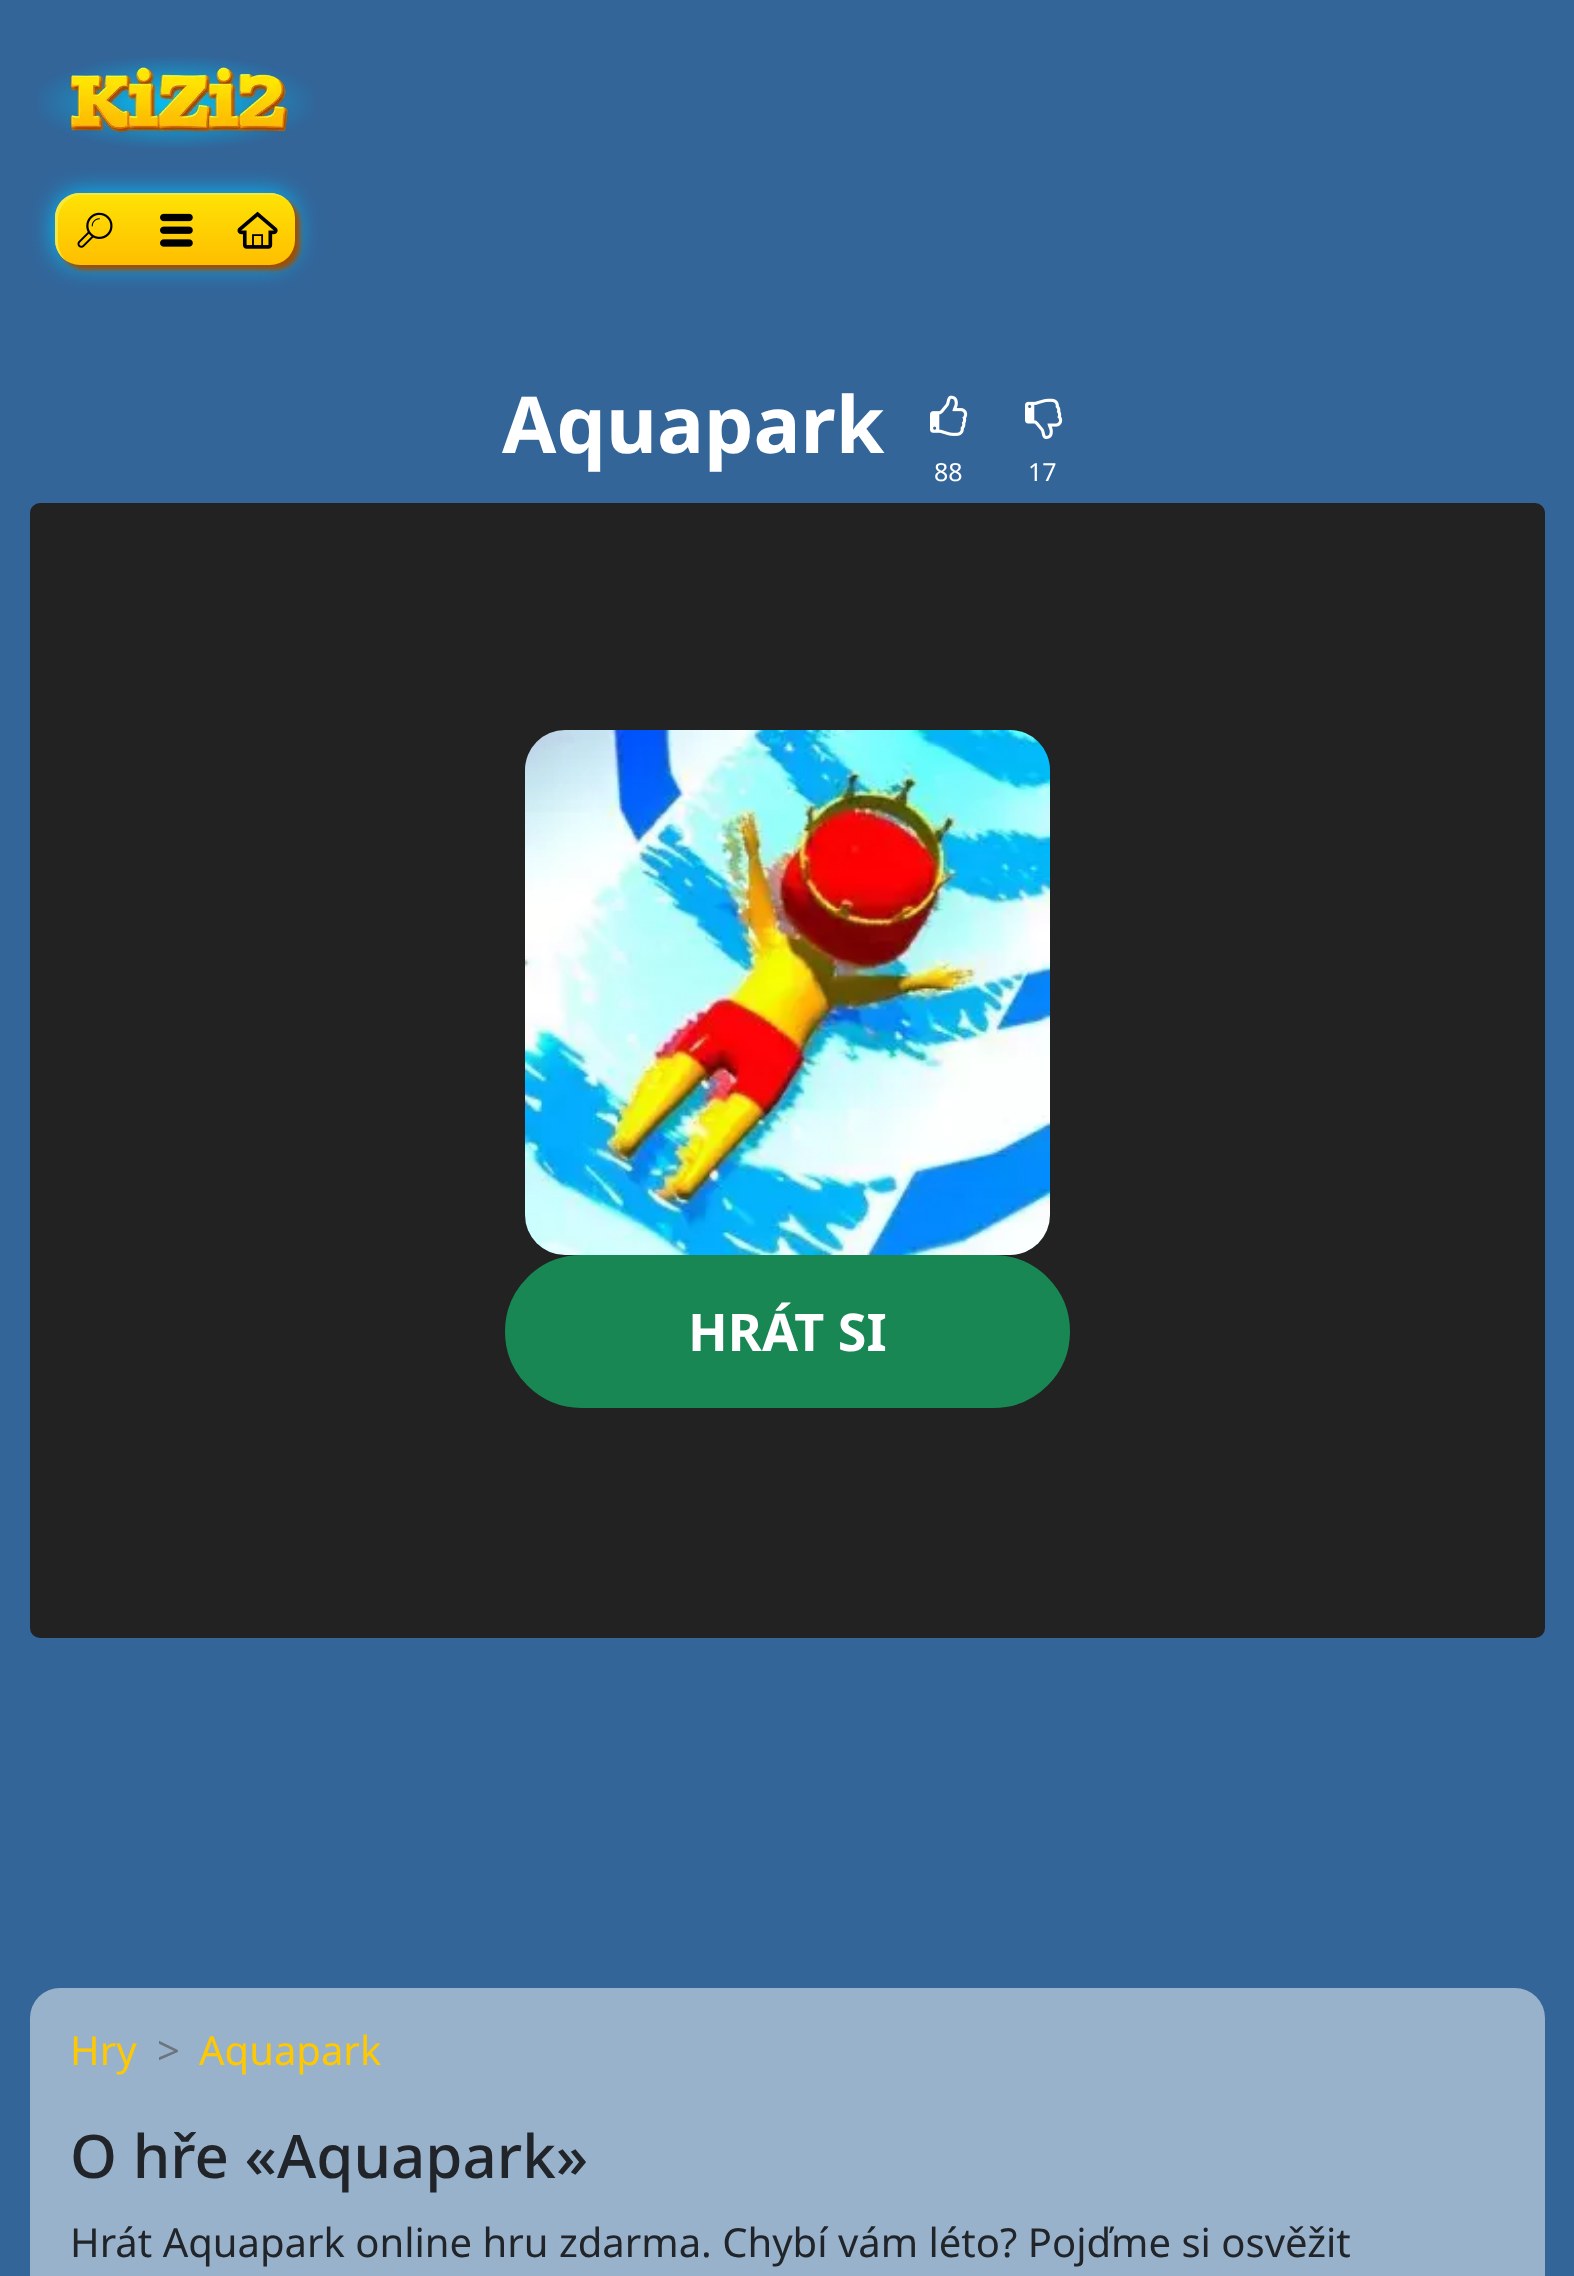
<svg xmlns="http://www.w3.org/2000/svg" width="1574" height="2276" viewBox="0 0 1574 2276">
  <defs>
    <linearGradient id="g1" gradientUnits="userSpaceOnUse" x1="175" y1="193" x2="175" y2="265"><stop offset="0" stop-color="rgb(254,227,5)"/><stop offset="1" stop-color="rgb(255,190,0)"/></linearGradient>
  </defs>
  <rect width="100%" height="100%" fill="rgb(51,101,153)"/>
  <image x="38" y="57" width="275" height="91" href="pic1.png"/>
  <rect x="55" y="193" width="240" height="72" rx="25" fill="rgb(0,193,255)" filter="blur(12.5px)"/>
  <rect x="60" y="198" width="240" height="72" rx="25" fill="rgb(159,78,0)" filter="blur(2.5px)"/>
  <rect x="55" y="193" width="240" height="72" rx="25" fill="url(#g1)"/>
  <path d="M82 195H272C277 195 283 197 287 200C282 195 276 193 270 193H80C66 193 55 204 55 218V240C55 248 59 255 65 260C61 255 58 249 58 242V220C58 206 69 195 82 195Z" fill="rgb(245,232,64)"/>
  <image x="77" y="212" width="36" height="36" href="pic2.png"/>
  <image x="160" y="213" width="33" height="34" href="pic3.png"/>
  <image x="237" y="211" width="41" height="38" href="pic4.png"/>
  <text x="502" y="453" font-family="Noto Sans" font-size="78.5" font-weight="bold" fill="rgb(255,255,255)">Aquapark</text>
  <image x="930" y="395" width="38" height="41" href="pic5.png"/>
  <text x="934" y="481" font-family="Noto Sans" font-size="25" fill="rgb(255,255,255)">88</text>
  <image x="1025" y="398" width="38" height="41" href="pic6.png"/>
  <text x="1028" y="481" font-family="Noto Sans" font-size="25" fill="rgb(255,255,255)">17</text>
  <rect x="30" y="503" width="1515" height="1135" rx="10" fill="rgb(34,34,34)"/>
  <image x="525" y="730" width="525" height="525" href="pic7.png"/>
  <rect x="506.5" y="1256.5" width="562" height="150" rx="75" fill="rgb(25,135,84)" stroke="rgb(25,135,84)" stroke-width="3"/>
  <text x="688" y="1351" font-family="Noto Sans" font-size="52" font-weight="bold" fill="rgb(255,255,255)">HRÁT SI</text>
  <rect x="30" y="1988" width="1515" height="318" rx="30" fill="rgb(153,178,204)"/>
  <text x="70" y="2065" font-family="Noto Sans" font-size="40" fill="rgb(255,201,1)">Hry</text>
  <text x="157" y="2065" font-family="Noto Sans" font-size="40" fill="rgb(108,117,125)">&gt;</text>
  <text x="199" y="2065" font-family="Noto Sans" font-size="40" fill="rgb(255,201,1)">Aquapark</text>
  <text x="70" y="2178" font-family="Noto Sans" font-size="60" font-weight="500" fill="rgb(33,37,41)">O hře «Aquapark»</text>
  <text x="70" y="2257" font-family="Noto Sans" font-size="40" fill="rgb(33,37,41)">Hrát Aquapark online hru zdarma. Chybí vám léto? Pojďme si osvěžit</text>
</svg>
